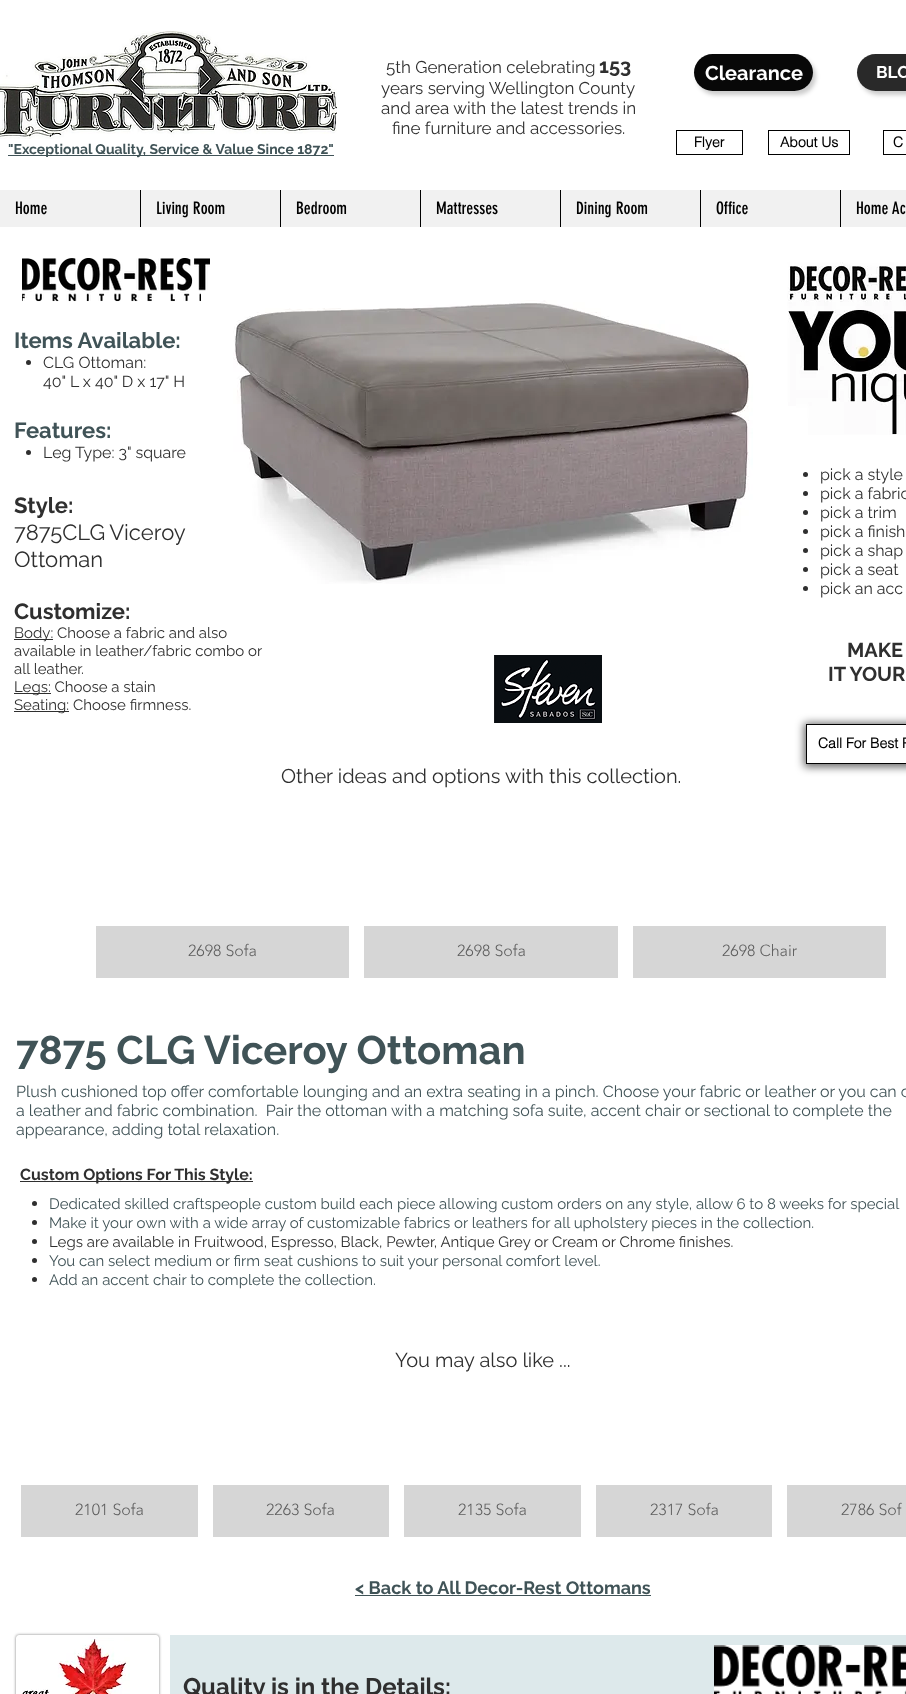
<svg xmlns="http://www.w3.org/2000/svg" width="906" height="1694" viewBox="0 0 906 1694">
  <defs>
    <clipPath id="clip1"><path d="M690 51H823V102H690ZM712.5 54H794.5C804.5 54 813 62.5 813 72.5C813 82.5 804.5 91 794.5 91H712.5C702.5 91 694 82.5 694 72.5C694 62.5 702.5 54 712.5 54Z" clip-rule="evenodd"/></clipPath>
    <clipPath id="clip2"><path d="M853 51H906V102H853ZM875.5 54H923.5C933.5 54 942 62.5 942 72.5C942 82.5 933.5 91 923.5 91H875.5C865.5 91 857 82.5 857 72.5C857 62.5 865.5 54 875.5 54Z" clip-rule="evenodd"/></clipPath>
    <clipPath id="clip3"><path d="M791 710H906V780H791ZM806 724H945V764H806Z" clip-rule="evenodd"/></clipPath>
    <clipPath id="clip4"><path d="M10 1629H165V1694H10ZM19 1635H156C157.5 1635 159 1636.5 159 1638V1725C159 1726.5 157.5 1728 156 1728H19C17.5 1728 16 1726.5 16 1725V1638C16 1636.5 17.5 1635 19 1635Z" clip-rule="evenodd"/></clipPath>
  </defs>
  <rect width="100%" height="100%" fill="rgb(255,255,255)"/>
  <image x="0" y="31" width="337" height="108" href="pic1.png"/>
  <text x="386" y="73" font-family="Raleway" font-size="17" fill="rgb(47,47,47)">5th Generation celebrating</text>
  <text x="599" y="73" font-family="Raleway" font-size="20" font-weight="bold" fill="rgb(47,47,47)">153</text>
  <g font-family="Raleway" font-size="17" fill="rgb(47,47,47)">
    <text>
      <tspan x="381" y="94">years serving Wellington County</tspan>
      <tspan x="381" y="114">and area with the latest trends in</tspan>
    </text>
    <text x="392" y="134">fine furniture and accessories.</text>
  </g>
  <g clip-path="url(#clip1)">
    <rect x="697" y="58" width="119" height="37" rx="18.5" fill="rgba(0,0,0,0.2)" filter="blur(2px)"/>
  </g>
  <rect x="694" y="54" width="119" height="37" rx="18.5" fill="rgba(0,0,0,0.97)"/>
  <text x="705" y="80" font-family="Raleway" font-size="20" font-weight="bold" fill="rgb(255,255,255)">Clearance</text>
  <g clip-path="url(#clip2)">
    <rect x="860" y="58" width="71" height="37" rx="18.5" fill="rgba(0,0,0,0.2)" filter="blur(2px)"/>
  </g>
  <rect x="857" y="54" width="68" height="37" rx="18.5" fill="rgba(0,0,0,0.84)"/>
  <text x="876" y="78" font-family="Raleway" font-size="17" font-weight="bold" fill="rgb(255,255,255)">BLO</text>
  <rect x="8" y="155" width="326" height="1" fill="rgb(64,83,87)"/>
  <text x="8" y="154" font-family="Raleway" font-size="14" font-weight="bold" fill="rgb(64,83,87)">"Exceptional Quality, Service &amp; Value Since 1872"</text>
  <rect x="676.5" y="130.5" width="66" height="24" fill="none" stroke="rgb(0,0,0)"/>
  <text x="694" y="147" font-family="helvetica" font-size="14" font-weight="bold" fill="rgb(0,0,0)">Flyer</text>
  <rect x="768.5" y="130.5" width="81" height="24" fill="none" stroke="rgb(0,0,0)"/>
  <text x="780" y="147" font-family="helvetica" font-size="14" font-weight="bold" fill="rgb(0,0,0)">About Us</text>
  <rect x="883.5" y="130.5" width="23" height="24" fill="none" stroke="rgb(0,0,0)"/>
  <text x="893" y="147" font-family="helvetica" font-size="14" font-weight="bold" fill="rgb(0,0,0)">C</text>
  <rect x="0" y="190" width="906" height="37" fill="rgb(241,241,241)"/>
  <text x="15" y="214" font-family="'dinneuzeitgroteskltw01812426'" font-size="17" fill="rgb(0,0,0)">Home</text>
  <rect x="140" y="190" width="1" height="37" fill="rgb(0,0,0)"/>
  <text x="156" y="214" font-family="'dinneuzeitgroteskltw01812426'" font-size="17" fill="rgb(0,0,0)">Living Room</text>
  <rect x="280" y="190" width="1" height="37" fill="rgb(0,0,0)"/>
  <text x="296" y="214" font-family="'dinneuzeitgroteskltw01812426'" font-size="17" fill="rgb(0,0,0)">Bedroom</text>
  <rect x="420" y="190" width="1" height="37" fill="rgb(0,0,0)"/>
  <text x="436" y="214" font-family="'dinneuzeitgroteskltw01812426'" font-size="17" fill="rgb(0,0,0)">Mattresses</text>
  <rect x="560" y="190" width="1" height="37" fill="rgb(0,0,0)"/>
  <text x="576" y="214" font-family="'dinneuzeitgroteskltw01812426'" font-size="17" fill="rgb(0,0,0)">Dining Room</text>
  <rect x="700" y="190" width="1" height="37" fill="rgb(0,0,0)"/>
  <text x="716" y="214" font-family="'dinneuzeitgroteskltw01812426'" font-size="17" fill="rgb(0,0,0)">Office</text>
  <rect x="840" y="190" width="1" height="37" fill="rgb(0,0,0)"/>
  <text x="856" y="214" font-family="'dinneuzeitgroteskltw01812426'" font-size="17" fill="rgb(0,0,0)">Home Ac</text>
  <image x="22" y="258" width="188" height="44" href="pic2.png"/>
  <rect x="201" y="292" width="7" height="10" fill="rgb(255,255,255)"/>
  <image x="233" y="300" width="520" height="284" href="pic3.png"/>
  <image x="787" y="262" width="119" height="173" href="pic4.png"/>
  <text x="14" y="348" font-family="Raleway" font-size="22" font-weight="bold" fill="rgb(64,83,87)">Items Available:</text>
  <circle cx="28.5" cy="362.5" r="2.5" fill="rgb(47,47,47)"/>
  <g font-family="Raleway" font-size="16" fill="rgb(47,47,47)">
    <text>
      <tspan x="43" y="368">CLG Ottoman:</tspan>
      <tspan x="43" y="387">40" L x 40" D x 17" H</tspan>
    </text>
  </g>
  <text x="14" y="438" font-family="Raleway" font-size="22" font-weight="bold" fill="rgb(64,83,87)">Features:</text>
  <circle cx="28.5" cy="452.5" r="2.5" fill="rgb(47,47,47)"/>
  <text x="43" y="458" font-family="Raleway" font-size="16" fill="rgb(47,47,47)">Leg Type: 3" square</text>
  <text x="14" y="513" font-family="Raleway" font-size="22" font-weight="bold" fill="rgb(47,47,47)">Style:</text>
  <g font-family="Raleway" font-size="22" fill="rgb(47,47,47)">
    <text>
      <tspan x="14" y="540" word-spacing="-1">7875CLG Viceroy</tspan>
      <tspan x="14" y="567">Ottoman</tspan>
    </text>
  </g>
  <text x="14" y="619" font-family="Raleway" font-size="22" font-weight="bold" fill="rgb(47,47,47)">Customize:</text>
  <rect x="14" y="639" width="39" height="1" fill="rgb(47,47,47)"/>
  <g font-family="Raleway" font-size="15" fill="rgb(47,47,47)">
    <text>
      <tspan x="14" y="638">Body: Choose a fabric and also</tspan>
      <tspan x="14" y="656">available in leather/fabric combo or</tspan>
      <tspan x="14" y="674">all leather.</tspan>
    </text>
  </g>
  <rect x="14" y="693" width="37" height="1" fill="rgb(47,47,47)"/>
  <text x="14" y="692" font-family="Raleway" font-size="15" fill="rgb(47,47,47)">Legs: Choose a stain</text>
  <rect x="14" y="711" width="55" height="1" fill="rgb(47,47,47)"/>
  <text x="14" y="710" font-family="Raleway" font-size="15" fill="rgb(47,47,47)">Seating: Choose firmness.</text>
  <circle cx="805.5" cy="474.5" r="2.5" fill="rgb(47,47,47)"/>
  <text x="820" y="480" font-family="Raleway" font-size="16" fill="rgb(47,47,47)">pick a style</text>
  <circle cx="805.5" cy="493.5" r="2.5" fill="rgb(47,47,47)"/>
  <text x="820" y="499" font-family="Raleway" font-size="16" fill="rgb(47,47,47)">pick a fabric</text>
  <circle cx="805.5" cy="512.5" r="2.5" fill="rgb(47,47,47)"/>
  <text x="820" y="518" font-family="Raleway" font-size="16" fill="rgb(47,47,47)">pick a trim</text>
  <circle cx="805.5" cy="531.5" r="2.5" fill="rgb(47,47,47)"/>
  <text x="820" y="537" font-family="Raleway" font-size="16" fill="rgb(47,47,47)">pick a finish</text>
  <circle cx="805.5" cy="550.5" r="2.5" fill="rgb(47,47,47)"/>
  <text x="820" y="556" font-family="Raleway" font-size="16" fill="rgb(47,47,47)">pick a shap</text>
  <circle cx="805.5" cy="569.5" r="2.5" fill="rgb(47,47,47)"/>
  <text x="820" y="575" font-family="Raleway" font-size="16" fill="rgb(47,47,47)">pick a seat</text>
  <circle cx="805.5" cy="588.5" r="2.5" fill="rgb(47,47,47)"/>
  <text x="820" y="594" font-family="Raleway" font-size="16" fill="rgb(47,47,47)">pick an acc</text>
  <image x="494" y="655" width="108" height="68" href="pic5.png"/>
  <g font-family="Raleway" font-size="20" font-weight="bold" fill="rgb(47,47,47)">
    <text x="847" y="657">MAKE</text>
    <text x="828" y="681">IT YOUR</text>
  </g>
  <g clip-path="url(#clip3)">
    <rect x="804" y="723" width="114" height="44" fill="rgba(0,0,0,0.6)" filter="blur(4px)"/>
  </g>
  <rect x="806.5" y="724.5" width="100" height="39" fill="none" stroke="rgb(0,0,0)"/>
  <text x="818" y="748" font-family="helvetica" font-size="14" font-weight="bold" fill="rgb(0,0,0)">Call For Best P</text>
  <text x="281" y="783" font-family="Raleway" font-size="20" fill="rgb(47,47,47)">Other ideas and options with this collection.</text>
  <rect x="96" y="926" width="253" height="52" fill="rgb(214,214,214)"/>
  <text x="188" y="956" font-family="'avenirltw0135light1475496'" font-size="16" font-weight="300" fill="rgb(94,94,94)">2698 Sofa</text>
  <rect x="364" y="926" width="254" height="52" fill="rgb(214,214,214)"/>
  <text x="457" y="956" font-family="'avenirltw0135light1475496'" font-size="16" font-weight="300" fill="rgb(94,94,94)">2698 Sofa</text>
  <rect x="633" y="926" width="253" height="52" fill="rgb(214,214,214)"/>
  <text x="722" y="956" font-family="'avenirltw0135light1475496'" font-size="16" font-weight="300" fill="rgb(94,94,94)">2698 Chair</text>
  <text x="16" y="1064" font-family="Raleway" font-size="40" font-weight="bold" fill="rgb(64,83,87)">7875 CLG Viceroy Ottoman</text>
  <g font-family="Raleway" font-size="16" fill="rgb(64,83,87)">
    <text xml:space="preserve"><tspan x="16" y="1097">Plush cushioned top offer comfortable lounging and an extra seating in a pinch. Choose your fabric or leather or you can c</tspan><tspan x="16" y="1116">a leather and fabric combination.  Pair the ottoman with a matching sofa suite, accent chair or sectional to complete the</tspan><tspan x="16" y="1135">appearance, adding total relaxation.</tspan></text>
  </g>
  <rect x="20" y="1181" width="233" height="1" fill="rgb(47,47,47)"/>
  <text x="20" y="1180" font-family="Raleway" font-size="16" font-weight="bold" fill="rgb(47,47,47)">Custom Options For This Style:</text>
  <circle cx="34.5" cy="1203.5" r="2.5" fill="rgb(47,47,47)"/>
  <text x="49" y="1209" font-family="Raleway" font-size="15" fill="rgb(64,83,87)">Dedicated skilled craftspeople custom build each piece allowing custom orders on any style, allow 6 to 8 weeks for special</text>
  <circle cx="34.5" cy="1222.5" r="2.5" fill="rgb(47,47,47)"/>
  <text x="49" y="1228" font-family="Raleway" font-size="15" fill="rgb(64,83,87)">Make it your own with a wide array of customizable fabrics or leathers for all upholstery pieces in the collection.</text>
  <circle cx="34.5" cy="1241.5" r="2.5" fill="rgb(47,47,47)"/>
  <text x="49" y="1247" font-family="Raleway" font-size="15" fill="rgb(47,47,47)">Legs are available in Fruitwood, Espresso, Black, Pewter, Antique Grey or Cream or Chrome finishes.</text>
  <circle cx="34.5" cy="1260.5" r="2.5" fill="rgb(47,47,47)"/>
  <text x="49" y="1266" font-family="Raleway" font-size="15" fill="rgb(64,83,87)">You can select medium or firm seat cushions to suit your personal comfort level.</text>
  <circle cx="34.5" cy="1279.5" r="2.5" fill="rgb(47,47,47)"/>
  <text x="49" y="1285" font-family="Raleway" font-size="15" fill="rgb(64,83,87)">Add an accent chair to complete the collection.</text>
  <text x="395" y="1367" font-family="Raleway" font-size="20" fill="rgb(47,47,47)">You may also like ...</text>
  <rect x="21" y="1485" width="177" height="52" fill="rgb(214,214,214)"/>
  <text x="75" y="1515" font-family="'avenirltw0135light1475496'" font-size="16" font-weight="300" fill="rgb(94,94,94)">2101 Sofa</text>
  <rect x="213" y="1485" width="176" height="52" fill="rgb(214,214,214)"/>
  <text x="266" y="1515" font-family="'avenirltw0135light1475496'" font-size="16" font-weight="300" fill="rgb(94,94,94)">2263 Sofa</text>
  <rect x="404" y="1485" width="177" height="52" fill="rgb(214,214,214)"/>
  <text x="458" y="1515" font-family="'avenirltw0135light1475496'" font-size="16" font-weight="300" fill="rgb(94,94,94)">2135 Sofa</text>
  <rect x="596" y="1485" width="176" height="52" fill="rgb(214,214,214)"/>
  <text x="650" y="1515" font-family="'avenirltw0135light1475496'" font-size="16" font-weight="300" fill="rgb(94,94,94)">2317 Sofa</text>
  <rect x="787" y="1485" width="119" height="52" fill="rgb(214,214,214)"/>
  <text x="841" y="1515" font-family="'avenirltw0135light1475496'" font-size="16" font-weight="300" fill="rgb(94,94,94)">2786 Sof</text>
  <text x="355" y="1594" font-family="Raleway" font-size="18" font-weight="bold" fill="rgb(64,83,87)">&lt; Back to All Decor-Rest Ottomans</text>
  <rect x="355" y="1595" width="296" height="1" fill="rgb(64,83,87)"/>
  <g clip-path="url(#clip4)">
    <rect x="16" y="1635" width="143" height="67" rx="3" fill="rgba(0,0,0,0.5)" filter="blur(1.5px)"/>
  </g>
  <image x="22" y="1637" width="108" height="57" href="pic6.png"/>
  <rect x="170" y="1635" width="736" height="59" fill="rgb(221,233,235)"/>
  <text x="183" y="1695" font-family="Raleway" font-size="24" font-weight="bold" fill="rgb(47,47,47)">Quality is in the Details:</text>
  <rect x="714" y="1645" width="192" height="49" fill="rgb(255,255,255)"/>
  <image x="714" y="1645" width="192" height="49" href="pic7.png"/>
</svg>
